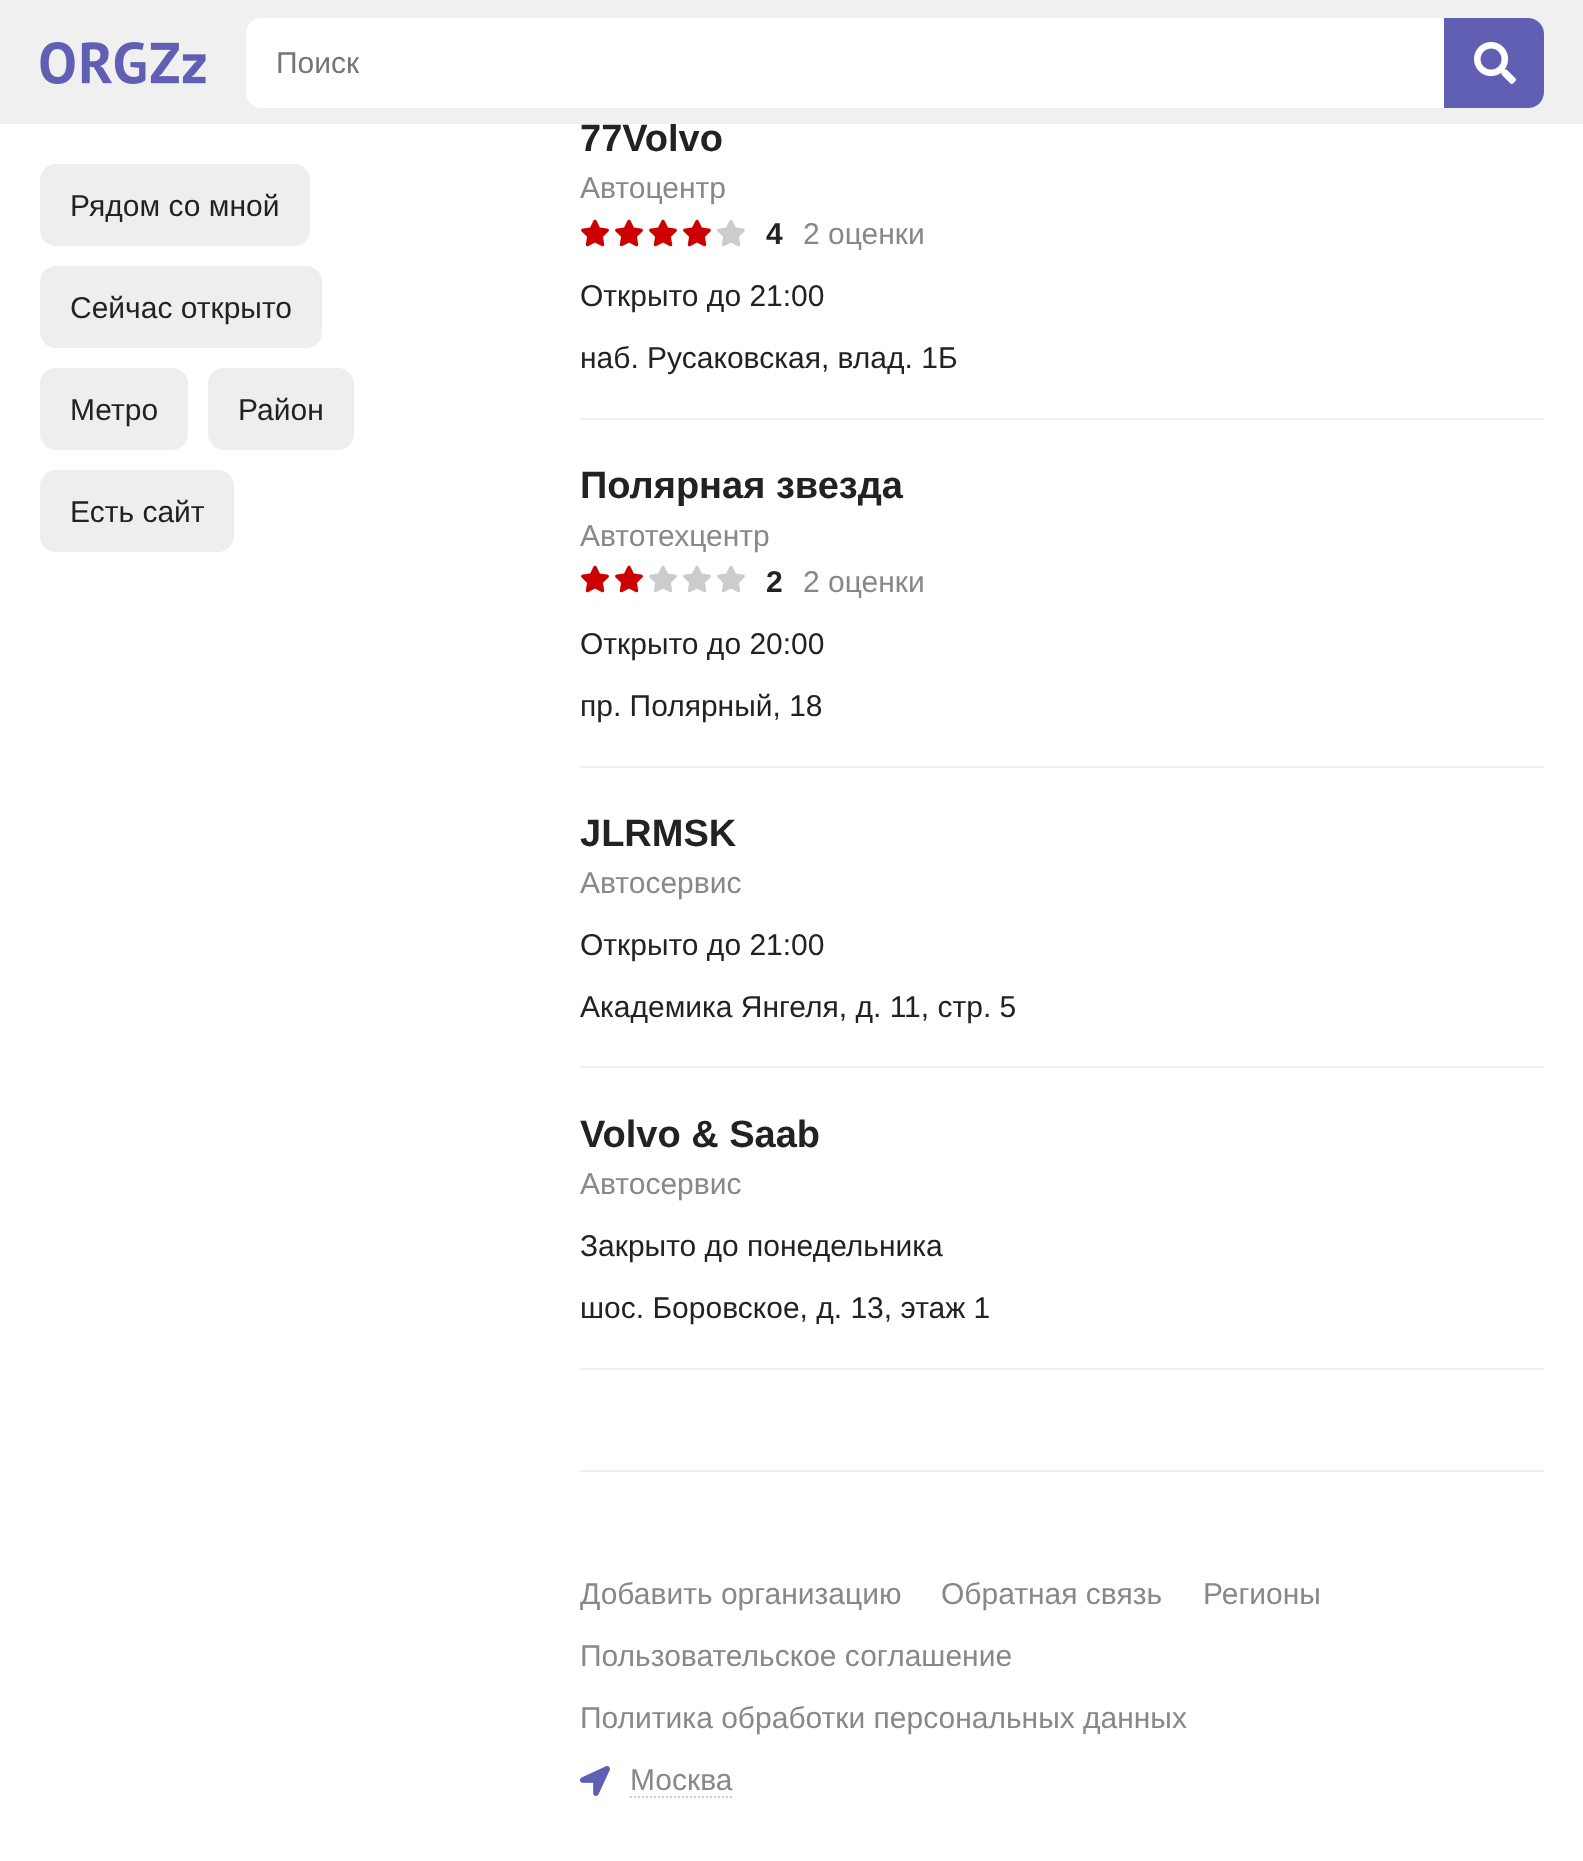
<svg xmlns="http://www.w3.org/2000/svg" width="1583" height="1861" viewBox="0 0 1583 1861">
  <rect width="100%" height="100%" fill="rgb(255,255,255)"/>
  <text x="580" y="151" font-family="Liberation Sans" font-size="38" font-weight="bold" fill="rgb(34,34,34)">77Volvo</text>
  <rect x="0" y="0" width="1583" height="124" fill="rgb(240,240,240)"/>
  <image x="40" y="42" width="166" height="42" href="pic1.png"/>
  <path d="M262 18H1444V108H262C253 108 246 101 246 92V34C246 25 253 18 262 18Z" fill="rgb(255,255,255)"/>
  <text x="276" y="73" font-family="Liberation Sans" font-size="30" fill="rgb(117,117,117)">Поиск</text>
  <path d="M1444 18H1528C1537 18 1544 25 1544 34V92C1544 101 1537 108 1528 108H1444Z" fill="rgb(96,95,179)"/>
  <image x="1474" y="42" width="42" height="42" href="pic2.png"/>
  <rect x="40" y="164" width="270" height="82" rx="16" fill="rgb(238,238,238)"/>
  <text x="70" y="216" font-family="Liberation Sans" font-size="30" fill="rgb(34,34,34)">Рядом со мной</text>
  <rect x="40" y="266" width="282" height="82" rx="16" fill="rgb(238,238,238)"/>
  <text x="70" y="318" font-family="Liberation Sans" font-size="30" fill="rgb(34,34,34)">Сейчас открыто</text>
  <rect x="40" y="368" width="148" height="82" rx="16" fill="rgb(238,238,238)"/>
  <text x="70" y="420" font-family="Liberation Sans" font-size="30" fill="rgb(34,34,34)">Метро</text>
  <rect x="208" y="368" width="146" height="82" rx="16" fill="rgb(238,238,238)"/>
  <text x="238" y="420" font-family="Liberation Sans" font-size="30" fill="rgb(34,34,34)">Район</text>
  <rect x="40" y="470" width="194" height="82" rx="16" fill="rgb(238,238,238)"/>
  <text x="70" y="522" font-family="Liberation Sans" font-size="30" fill="rgb(34,34,34)">Есть сайт</text>
  <rect x="580" y="418" width="964" height="2" fill="rgb(241,241,241)"/>
  <text x="580" y="198" font-family="Liberation Sans" font-size="30" fill="rgb(136,136,136)">Автоцентр</text>
  <image x="581" y="219" width="28" height="28" href="pic3.png"/>
  <image x="615" y="219" width="28" height="28" href="pic3.png"/>
  <image x="649" y="219" width="28" height="28" href="pic3.png"/>
  <image x="683" y="219" width="28" height="28" href="pic3.png"/>
  <image x="717" y="219" width="28" height="28" href="pic4.png"/>
  <text x="766" y="244" font-family="Liberation Sans" font-size="30" font-weight="bold" fill="rgb(34,34,34)">4</text>
  <text x="803" y="244" font-family="Liberation Sans" font-size="30" fill="rgb(136,136,136)">2 оценки</text>
  <g font-family="Liberation Sans" font-size="30" fill="rgb(34,34,34)">
    <text x="580" y="306">Открыто до 21:00</text>
    <text x="580" y="368">наб. Русаковская, влад. 1Б</text>
  </g>
  <rect x="580" y="766" width="964" height="2" fill="rgb(241,241,241)"/>
  <text x="580" y="498" font-family="Liberation Sans" font-size="38" font-weight="bold" fill="rgb(34,34,34)">Полярная звезда</text>
  <text x="580" y="546" font-family="Liberation Sans" font-size="30" fill="rgb(136,136,136)">Автотехцентр</text>
  <image x="581" y="565" width="28" height="28" href="pic3.png"/>
  <image x="615" y="565" width="28" height="28" href="pic3.png"/>
  <image x="649" y="565" width="28" height="28" href="pic4.png"/>
  <image x="683" y="565" width="28" height="28" href="pic4.png"/>
  <image x="717" y="565" width="28" height="28" href="pic4.png"/>
  <text x="766" y="592" font-family="Liberation Sans" font-size="30" font-weight="bold" fill="rgb(34,34,34)">2</text>
  <text x="803" y="592" font-family="Liberation Sans" font-size="30" fill="rgb(136,136,136)">2 оценки</text>
  <g font-family="Liberation Sans" font-size="30" fill="rgb(34,34,34)">
    <text x="580" y="654">Открыто до 20:00</text>
    <text x="580" y="716">пр. Полярный, 18</text>
  </g>
  <rect x="580" y="1066" width="964" height="2" fill="rgb(241,241,241)"/>
  <text x="580" y="846" font-family="Liberation Sans" font-size="38" font-weight="bold" fill="rgb(34,34,34)">JLRMSK</text>
  <text x="580" y="893" font-family="Liberation Sans" font-size="30" fill="rgb(136,136,136)">Автосервис</text>
  <g font-family="Liberation Sans" font-size="30" fill="rgb(34,34,34)">
    <text x="580" y="955">Открыто до 21:00</text>
    <text x="580" y="1017">Академика Янгеля, д. 11, стр. 5</text>
  </g>
  <rect x="580" y="1368" width="964" height="2" fill="rgb(241,241,241)"/>
  <text x="580" y="1147" font-family="Liberation Sans" font-size="38" font-weight="bold" fill="rgb(34,34,34)">Volvo &amp; Saab</text>
  <text x="580" y="1194" font-family="Liberation Sans" font-size="30" fill="rgb(136,136,136)">Автосервис</text>
  <g font-family="Liberation Sans" font-size="30" fill="rgb(34,34,34)">
    <text x="580" y="1256">Закрыто до понедельника</text>
    <text x="580" y="1318">шос. Боровское, д. 13, этаж 1</text>
  </g>
  <rect x="580" y="1470" width="964" height="2" fill="rgb(238,238,238)"/>
  <g font-family="Liberation Sans" font-size="30" fill="rgb(136,136,136)">
    <text x="580" y="1604">Добавить организацию</text>
    <text x="941" y="1604">Обратная связь</text>
    <text x="1203" y="1604">Регионы</text>
    <text x="580" y="1666">Пользовательское соглашение</text>
    <text x="580" y="1728">Политика обработки персональных данных</text>
  </g>
  <image x="580" y="1766" width="30" height="30" href="pic5.png"/>
  <text x="630" y="1790" font-family="Liberation Sans" font-size="30" fill="rgb(136,136,136)">Москва</text>
  <path d="M630 1797H732" fill="none" stroke="rgb(204,204,204)" stroke-width="2" stroke-dasharray="2 2"/>
</svg>
